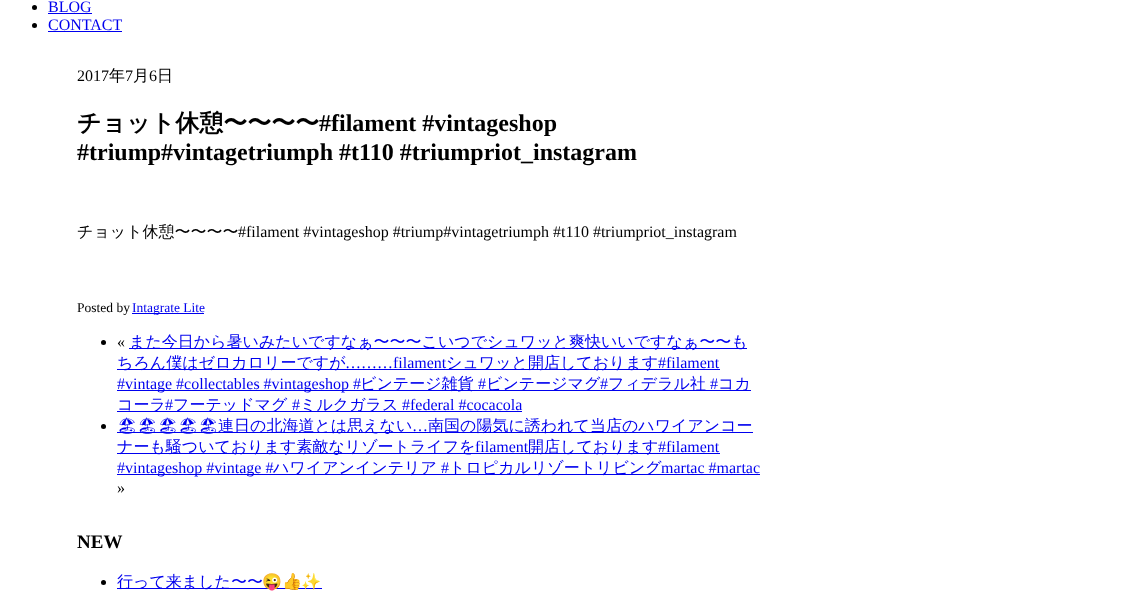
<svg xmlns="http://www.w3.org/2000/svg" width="1123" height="601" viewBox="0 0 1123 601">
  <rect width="100%" height="100%" fill="rgb(255,255,255)"/>
  <circle cx="34.5" cy="7.5" r="2.5" fill="rgb(0,0,0)"/>
  <text x="48" y="12" font-family="Liberation Serif" font-size="16" fill="rgb(0,0,238)">BLOG</text>
  <rect x="48" y="13" width="44" height="1" fill="rgb(0,0,238)"/>
  <circle cx="34.5" cy="25.5" r="2.5" fill="rgb(0,0,0)"/>
  <text x="48" y="30" font-family="Liberation Serif" font-size="16" fill="rgb(0,0,238)">CONTACT</text>
  <rect x="48" y="31" width="74" height="1" fill="rgb(0,0,238)"/>
  <text x="77" y="81" font-family="Liberation Serif" font-size="16" fill="rgb(0,0,0)">2017</text>
  <text x="109" y="81" font-family="WenQuanYi Zen Hei" font-size="16" font-weight="500" fill="rgb(0,0,0)">年</text>
  <text x="125" y="81" font-family="Liberation Serif" font-size="16" fill="rgb(0,0,0)">7</text>
  <text x="133" y="81" font-family="WenQuanYi Zen Hei" font-size="16" font-weight="500" fill="rgb(0,0,0)">月</text>
  <text x="149" y="81" font-family="Liberation Serif" font-size="16" fill="rgb(0,0,0)">6</text>
  <text x="157" y="81" font-family="WenQuanYi Zen Hei" font-size="16" font-weight="500" fill="rgb(0,0,0)">日</text>
  <text x="77" y="131" font-family="WenQuanYi Zen Hei" font-size="24" font-weight="bold" fill="rgb(0,0,0)">チョット休憩〜〜〜〜️️️</text>
  <g font-family="Liberation Serif" font-size="24" font-weight="bold" fill="rgb(0,0,0)">
    <text x="319" y="131">#filament #vintageshop</text>
    <text x="77" y="160">#triump#vintagetriumph #t110 #triumpriot_instagram</text>
  </g>
  <text x="77" y="237" font-family="WenQuanYi Zen Hei" font-size="16" font-weight="500" fill="rgb(0,0,0)">チョット休憩〜〜〜〜️️️</text>
  <text x="238" y="237" font-family="Liberation Serif" font-size="16" fill="rgb(0,0,0)">#filament #vintageshop #triump#vintagetriumph #t110 #triumpriot_instagram</text>
  <text x="77" y="312" font-family="Liberation Serif" font-size="13.5" fill="rgb(0,0,0)">Posted by</text>
  <rect x="132" y="313" width="72" height="1" fill="rgb(0,0,238)"/>
  <text x="132" y="312" font-family="Liberation Serif" font-size="13.5" fill="rgb(0,0,238)">Intagrate Lite</text>
  <circle cx="103.5" cy="342.5" r="2.5" fill="rgb(0,0,0)"/>
  <text x="117" y="347" font-family="Liberation Serif" font-size="16" fill="rgb(0,0,0)">«</text>
  <rect x="129" y="348" width="618" height="1" fill="rgb(0,0,238)"/>
  <text x="129" y="347" font-family="WenQuanYi Zen Hei" font-size="16" font-weight="500" fill="rgb(0,0,238)">また今日から暑いみたいですなぁ〜〜〜こいつでシュワッと爽快いいですなぁ〜〜も</text>
  <rect x="117" y="369" width="603" height="1" fill="rgb(0,0,238)"/>
  <text x="117" y="368" font-family="WenQuanYi Zen Hei" font-size="16" font-weight="500" fill="rgb(0,0,238)">ちろん僕はゼロカロリーですが</text>
  <text x="345" y="368" font-family="Liberation Serif" font-size="16" fill="rgb(0,0,238)">………filament</text>
  <text x="446" y="368" font-family="WenQuanYi Zen Hei" font-size="16" font-weight="500" fill="rgb(0,0,238)">シュワッと開店しております️️️</text>
  <text x="658" y="368" font-family="Liberation Serif" font-size="16" fill="rgb(0,0,238)">#filament</text>
  <rect x="117" y="390" width="634" height="1" fill="rgb(0,0,238)"/>
  <text x="117" y="389" font-family="Liberation Serif" font-size="16" fill="rgb(0,0,238)">#vintage #collectables #vintageshop #</text>
  <text x="360" y="389" font-family="WenQuanYi Zen Hei" font-size="16" font-weight="500" fill="rgb(0,0,238)">ビンテージ雑貨</text>
  <text x="478" y="389" font-family="Liberation Serif" font-size="16" fill="rgb(0,0,238)">#</text>
  <text x="486" y="389" font-family="WenQuanYi Zen Hei" font-size="16" font-weight="500" fill="rgb(0,0,238)">ビンテージマグ</text>
  <text x="600" y="389" font-family="Liberation Serif" font-size="16" fill="rgb(0,0,238)">#</text>
  <text x="608" y="389" font-family="WenQuanYi Zen Hei" font-size="16" font-weight="500" fill="rgb(0,0,238)">フィデラル社</text>
  <text x="710" y="389" font-family="Liberation Serif" font-size="16" fill="rgb(0,0,238)">#</text>
  <text x="718" y="389" font-family="WenQuanYi Zen Hei" font-size="16" font-weight="500" fill="rgb(0,0,238)">コカ</text>
  <rect x="117" y="411" width="405" height="1" fill="rgb(0,0,238)"/>
  <text x="117" y="410" font-family="WenQuanYi Zen Hei" font-size="16" font-weight="500" fill="rgb(0,0,238)">コーラ</text>
  <text x="165" y="410" font-family="Liberation Serif" font-size="16" fill="rgb(0,0,238)">#</text>
  <text x="173" y="410" font-family="WenQuanYi Zen Hei" font-size="16" font-weight="500" fill="rgb(0,0,238)">フーテッドマグ</text>
  <text x="292" y="410" font-family="Liberation Serif" font-size="16" fill="rgb(0,0,238)">#</text>
  <text x="300" y="410" font-family="WenQuanYi Zen Hei" font-size="16" font-weight="500" fill="rgb(0,0,238)">ミルクガラス</text>
  <text x="402" y="410" font-family="Liberation Serif" font-size="16" fill="rgb(0,0,238)">#federal #cocacola</text>
  <circle cx="103.5" cy="426.5" r="2.5" fill="rgb(0,0,0)"/>
  <rect x="117" y="432" width="636" height="1" fill="rgb(0,0,238)"/>
  <text x="117" y="431" font-family="Noto Emoji" font-size="16" fill="rgb(0,0,238)">🏖🏖🏖🏖🏖</text>
  <g font-family="WenQuanYi Zen Hei" font-size="16" font-weight="500" fill="rgb(0,0,238)">
    <text x="218" y="431">連日の北海道とは思えない</text>
    <text x="428" y="431">南国の陽気️に誘われて当店のハワイアンコー</text>
  </g>
  <text x="412" y="431" font-family="Liberation Serif" font-size="16" fill="rgb(0,0,238)">…️</text>
  <rect x="117" y="453" width="603" height="1" fill="rgb(0,0,238)"/>
  <text x="117" y="452" font-family="WenQuanYi Zen Hei" font-size="16" font-weight="500" fill="rgb(0,0,238)">ナーも騒ついております️素敵なリゾートライフを</text>
  <text x="475" y="452" font-family="Liberation Serif" font-size="16" fill="rgb(0,0,238)">filament</text>
  <text x="528" y="452" font-family="WenQuanYi Zen Hei" font-size="16" font-weight="500" fill="rgb(0,0,238)">開店しております️️️️️</text>
  <text x="658" y="452" font-family="Liberation Serif" font-size="16" fill="rgb(0,0,238)">#filament</text>
  <rect x="117" y="474" width="643" height="1" fill="rgb(0,0,238)"/>
  <text x="117" y="473" font-family="Liberation Serif" font-size="16" fill="rgb(0,0,238)">#vintageshop #vintage #</text>
  <text x="273" y="473" font-family="WenQuanYi Zen Hei" font-size="16" font-weight="500" fill="rgb(0,0,238)">ハワイアンインテリア</text>
  <text x="441" y="473" font-family="Liberation Serif" font-size="16" fill="rgb(0,0,238)">#</text>
  <text x="449" y="473" font-family="WenQuanYi Zen Hei" font-size="16" font-weight="500" fill="rgb(0,0,238)">トロピカルリゾートリビング</text>
  <text x="661" y="473" font-family="Liberation Serif" font-size="16" fill="rgb(0,0,238)">martac #martac</text>
  <text x="117" y="493" font-family="Liberation Serif" font-size="16" fill="rgb(0,0,0)">»</text>
  <text x="77" y="548" font-family="Liberation Serif" font-size="19" font-weight="bold" fill="rgb(0,0,0)">NEW</text>
  <circle cx="103.5" cy="582.5" r="2.5" fill="rgb(0,0,0)"/>
  <rect x="117" y="588" width="205" height="1" fill="rgb(0,0,238)"/>
  <text x="117" y="587" font-family="WenQuanYi Zen Hei" font-size="16" font-weight="500" fill="rgb(0,0,238)">行って来ました〜〜</text>
  <text x="262" y="587" font-family="Noto Color Emoji" font-size="16" fill="rgb(0,0,238)">😜👍✨</text>
</svg>
